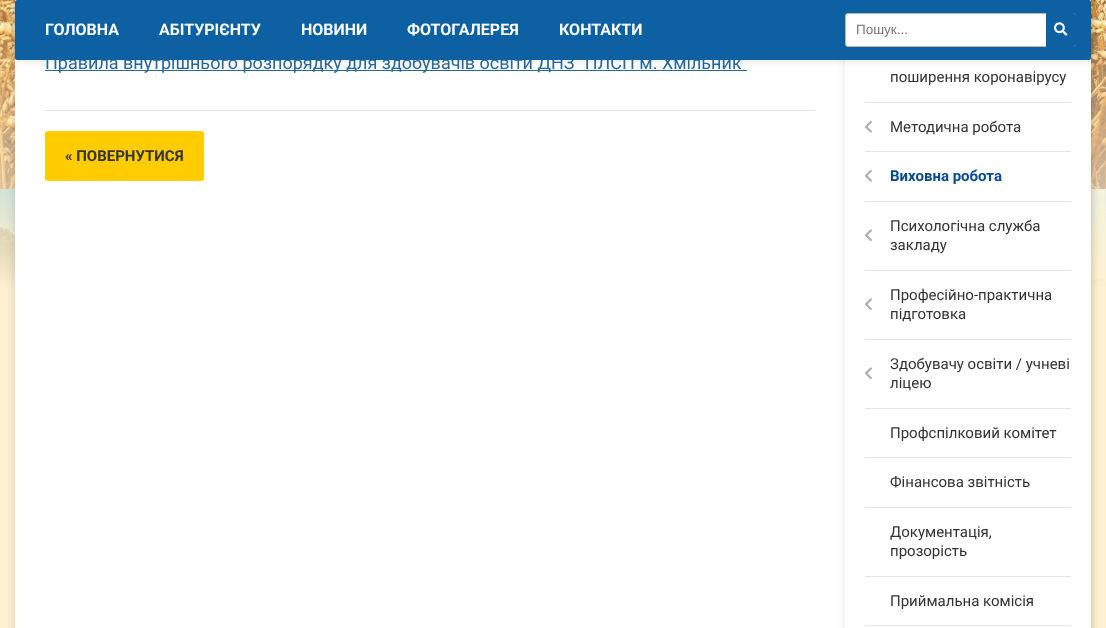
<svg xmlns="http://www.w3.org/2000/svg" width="1106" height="628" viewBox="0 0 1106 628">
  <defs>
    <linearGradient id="g1" gradientUnits="userSpaceOnUse" x1="553" y1="-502" x2="553" y2="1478"><stop offset="0.2" stop-color="rgb(255,241,208)" stop-opacity="0"/><stop offset="0.4" stop-color="rgb(255,241,208)"/></linearGradient>
    <clipPath id="clip1"><path d="M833 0H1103V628H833ZM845-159H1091V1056H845Z" clip-rule="evenodd"/></clipPath>
  </defs>
  <rect width="100%" height="100%" fill="rgb(255,255,255)"/>
  <image x="0" y="0" width="1106" height="288" href="pic1.png"/>
  <rect x="0" y="0" width="1106" height="628" fill="url(#g1)"/>
  <rect x="15" y="-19" width="1076" height="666" rx="4" fill="rgba(0,0,0,0.15)" filter="blur(5px)"/>
  <rect x="15" y="0" width="1076" height="628" fill="rgb(255,255,255)"/>
  <rect x="45" y="70" width="702" height="1" fill="rgb(37,102,156)"/>
  <rect x="15" y="1" width="1076" height="60" rx="2" fill="rgba(0,0,0,0.1)" filter="blur(3.5px)"/>
  <text x="45" y="69" font-family="Roboto" font-size="18" fill="rgb(37,102,156)">Правила внутрішнього розпорядку для здобувачів освіти ДНЗ "ПЛСП м. Хмільник</text>
  <g clip-path="url(#clip1)">
    <rect x="845" y="-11" width="246" height="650" fill="rgba(0,0,0,0.1)" filter="blur(3.5px)"/>
  </g>
  <rect x="15" y="0" width="1076" height="60" rx="2" fill="rgb(13,97,162)"/>
  <g font-family="Roboto" font-size="16" font-weight="bold" fill="rgb(255,255,255)">
    <text x="45" y="35">ГОЛОВНА</text>
    <text x="159" y="35">АБІТУРІЄНТУ</text>
    <text x="301" y="35">НОВИНИ</text>
    <text x="407" y="35">ФОТОГАЛЕРЕЯ</text>
    <text x="559" y="35">КОНТАКТИ</text>
  </g>
  <rect x="45" y="110" width="770" height="1" fill="rgb(229,229,229)"/>
  <rect x="45" y="131" width="159" height="50" rx="3" fill="rgb(255,204,0)"/>
  <text x="65" y="161" font-family="Roboto" font-size="15" font-weight="bold" fill="rgb(51,51,51)">« ПОВЕРНУТИСЯ</text>
  <text x="890" y="82" font-family="Roboto" font-size="15" fill="rgb(51,51,51)">поширення коронавірусу</text>
  <rect x="865" y="102" width="206" height="1" fill="rgb(230,230,230)"/>
  <image x="864" y="120" width="8" height="13" href="pic2.png"/>
  <text x="890" y="132" font-family="Roboto" font-size="15" fill="rgb(51,51,51)">Методична робота</text>
  <rect x="865" y="151" width="206" height="1" fill="rgb(230,230,230)"/>
  <image x="864" y="169" width="8" height="13" href="pic2.png"/>
  <text x="890" y="181" font-family="Roboto" font-size="15" font-weight="bold" fill="rgb(8,74,140)">Виховна робота</text>
  <rect x="865" y="201" width="206" height="1" fill="rgb(230,230,230)"/>
  <image x="864" y="229" width="8" height="13" href="pic3.png"/>
  <g font-family="Roboto" font-size="15" fill="rgb(51,51,51)">
    <text>
      <tspan x="890" y="231">Психологічна служба</tspan>
      <tspan x="890" y="250">закладу</tspan>
    </text>
  </g>
  <rect x="865" y="270" width="206" height="1" fill="rgb(230,230,230)"/>
  <image x="864" y="298" width="8" height="13" href="pic3.png"/>
  <g font-family="Roboto" font-size="15" fill="rgb(51,51,51)">
    <text>
      <tspan x="890" y="300">Професійно-практична</tspan>
      <tspan x="890" y="319">підготовка</tspan>
    </text>
  </g>
  <rect x="865" y="339" width="206" height="1" fill="rgb(230,230,230)"/>
  <image x="864" y="367" width="8" height="13" href="pic3.png"/>
  <g font-family="Roboto" font-size="15" fill="rgb(51,51,51)">
    <text>
      <tspan x="890" y="369">Здобувачу освіти / учневі</tspan>
      <tspan x="890" y="388">ліцею</tspan>
    </text>
  </g>
  <rect x="865" y="408" width="206" height="1" fill="rgb(230,230,230)"/>
  <text x="890" y="438" font-family="Roboto" font-size="15" fill="rgb(51,51,51)">Профспілковий комітет</text>
  <rect x="865" y="457" width="206" height="1" fill="rgb(230,230,230)"/>
  <text x="890" y="487" font-family="Roboto" font-size="15" fill="rgb(51,51,51)">Фінансова звітність</text>
  <rect x="865" y="507" width="206" height="1" fill="rgb(230,230,230)"/>
  <g font-family="Roboto" font-size="15" fill="rgb(51,51,51)">
    <text>
      <tspan x="890" y="537">Документація,</tspan>
      <tspan x="890" y="556">прозорість</tspan>
    </text>
  </g>
  <rect x="865" y="576" width="206" height="1" fill="rgb(230,230,230)"/>
  <text x="890" y="606" font-family="Roboto" font-size="15" fill="rgb(51,51,51)">Приймальна комісія</text>
  <rect x="865" y="625" width="206" height="1" fill="rgb(230,230,230)"/>
  <rect x="845.5" y="13.5" width="230" height="33" rx="2.5" fill="rgb(255,255,255)" stroke="rgb(183,183,183)"/>
  <text x="856" y="34" font-family="Liberation Sans" font-size="13.5" fill="rgb(117,117,117)">Пошук...</text>
  <path d="M1046 13H1073C1074.5 13 1076 14.5 1076 16V44C1076 45.5 1074.5 47 1073 47H1046Z" fill="rgb(13,97,162)"/>
  <image x="1054" y="22" width="14" height="14" href="pic4.png"/>
</svg>
